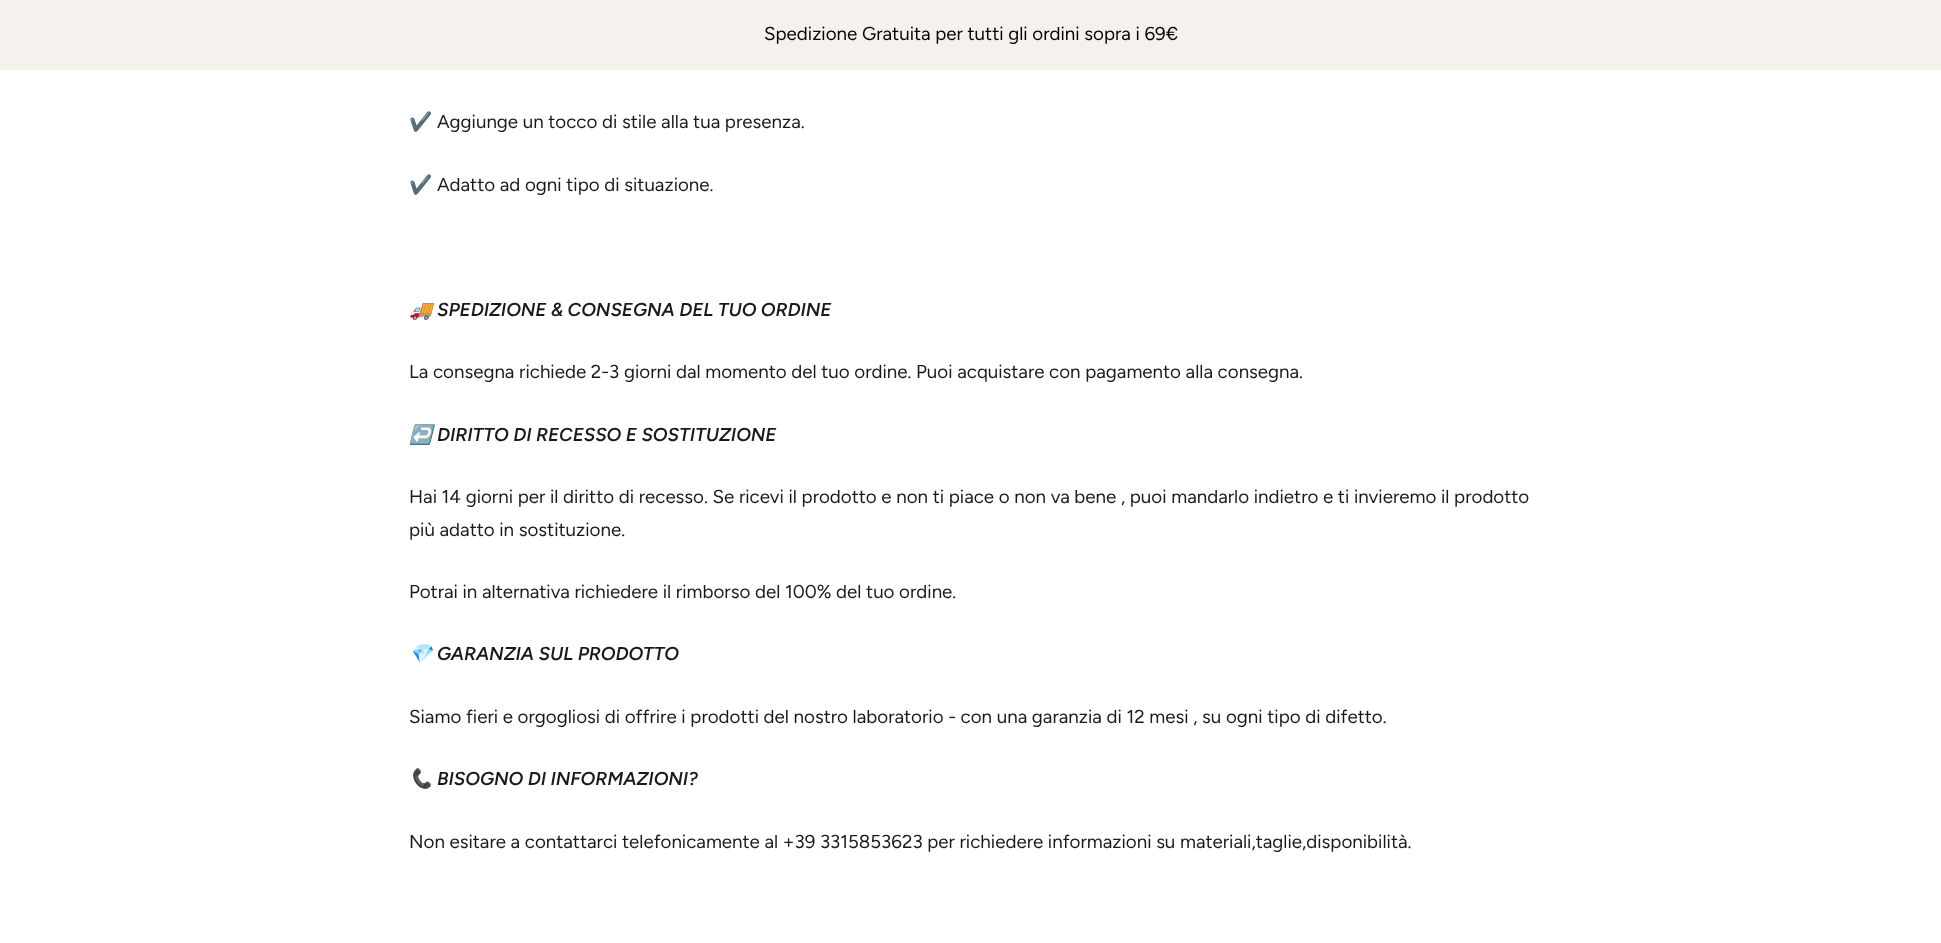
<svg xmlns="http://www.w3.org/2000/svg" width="1941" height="943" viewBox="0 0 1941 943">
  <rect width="100%" height="100%" fill="rgb(255,255,255)"/>
  <rect x="0" y="0" width="1941" height="70" fill="rgb(245,241,236)"/>
  <text x="764" y="40" font-family="Figtree" font-size="18.75" fill="rgb(3,3,3)">Spedizione Gratuita per tutti gli ordini sopra i 69€</text>
  <text x="409" y="128" font-family="Noto Color Emoji" font-size="18.75" font-weight="bold" fill="rgb(26,26,26)">✔️</text>
  <text x="437" y="128" font-family="Figtree" font-size="18.75" fill="rgb(26,26,26)">Aggiunge un tocco di stile alla tua presenza.</text>
  <text x="409" y="191" font-family="Noto Color Emoji" font-size="18.75" font-weight="bold" fill="rgb(26,26,26)">✔️</text>
  <text x="437" y="191" font-family="Figtree" font-size="18.75" fill="rgb(26,26,26)">Adatto ad ogni tipo di situazione.</text>
  <text x="409" y="316" font-family="Noto Color Emoji" font-size="18.75" font-weight="bold" font-style="italic" fill="rgb(26,26,26)">🚚</text>
  <text x="437" y="316" font-family="Figtree" font-size="18.75" font-weight="600" font-style="italic" fill="rgb(26,26,26)">SPEDIZIONE &amp; CONSEGNA DEL TUO ORDINE</text>
  <text x="409" y="378" font-family="Figtree" font-size="18.75" fill="rgb(26,26,26)">La consegna richiede 2-3 giorni dal momento del tuo ordine. Puoi acquistare con pagamento alla consegna.</text>
  <text x="409" y="441" font-family="Noto Color Emoji" font-size="18.75" font-weight="bold" font-style="italic" fill="rgb(26,26,26)">↩️</text>
  <text x="437" y="441" font-family="Figtree" font-size="18.75" font-weight="600" font-style="italic" fill="rgb(26,26,26)">DIRITTO DI RECESSO E SOSTITUZIONE</text>
  <g font-family="Figtree" font-size="18.75" fill="rgb(26,26,26)">
    <text>
      <tspan x="409" y="503">Hai 14 giorni per il diritto di recesso. Se ricevi il prodotto e non ti piace o non va bene , puoi mandarlo indietro e ti invieremo il prodotto</tspan>
      <tspan x="409" y="536">più adatto in sostituzione.</tspan>
    </text>
    <text x="409" y="598">Potrai in alternativa richiedere il rimborso del 100% del tuo ordine.</text>
  </g>
  <text x="409" y="660" font-family="Noto Color Emoji" font-size="18.75" font-weight="bold" font-style="italic" fill="rgb(26,26,26)">💎</text>
  <text x="437" y="660" font-family="Figtree" font-size="18.75" font-weight="600" font-style="italic" fill="rgb(26,26,26)">GARANZIA SUL PRODOTTO</text>
  <text x="409" y="723" font-family="Figtree" font-size="18.75" fill="rgb(26,26,26)">Siamo fieri e orgogliosi di offrire i prodotti del nostro laboratorio - con una garanzia di 12 mesi , su ogni tipo di difetto.</text>
  <text x="409" y="785" font-family="Noto Color Emoji" font-size="18.75" font-weight="bold" font-style="italic" fill="rgb(26,26,26)">📞</text>
  <text x="437" y="785" font-family="Figtree" font-size="18.75" font-weight="600" font-style="italic" fill="rgb(26,26,26)">BISOGNO DI INFORMAZIONI?</text>
  <text x="409" y="848" font-family="Figtree" font-size="18.75" fill="rgb(26,26,26)">Non esitare a contattarci telefonicamente al +39 3315853623 per richiedere informazioni su materiali,taglie,disponibilità.</text>
</svg>
